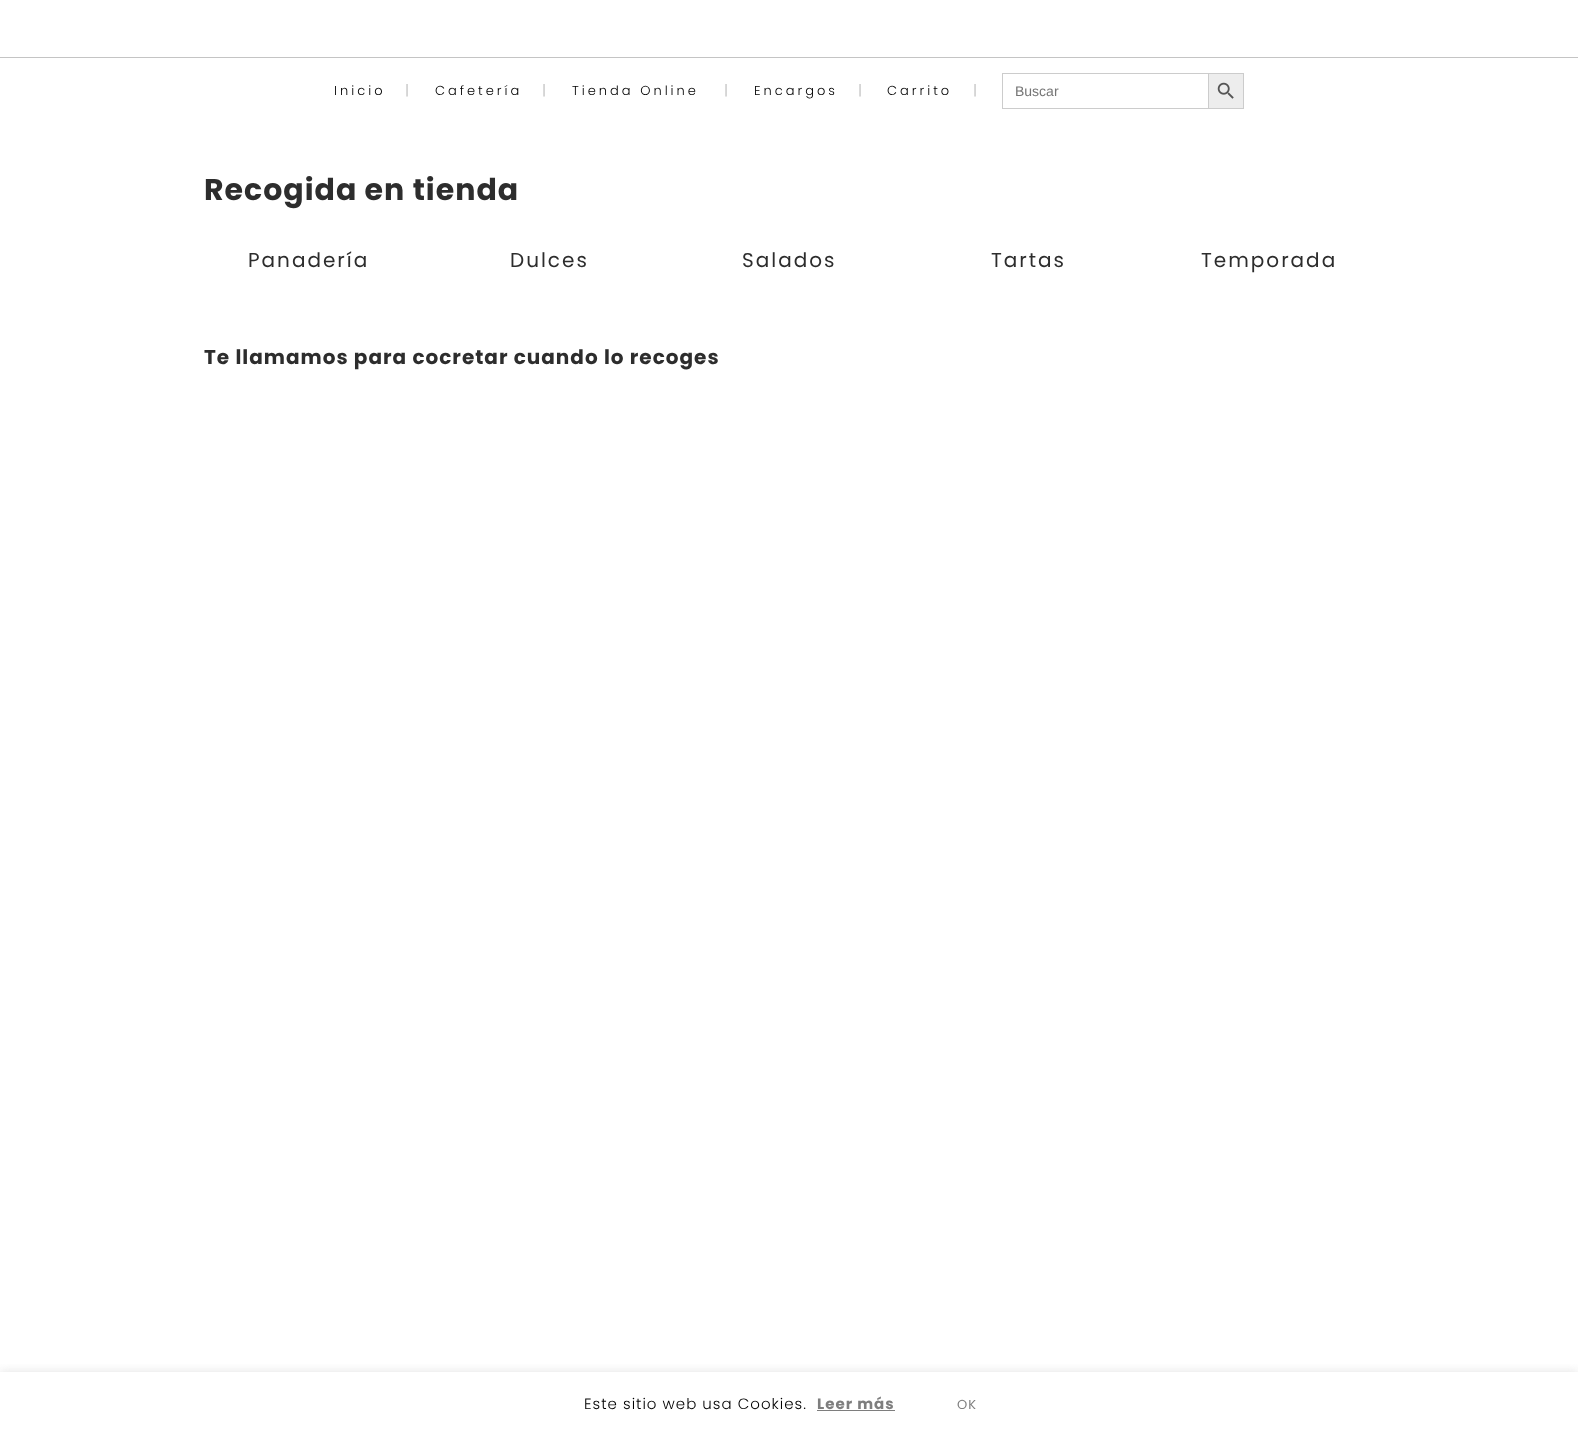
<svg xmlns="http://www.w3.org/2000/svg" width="1578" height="1437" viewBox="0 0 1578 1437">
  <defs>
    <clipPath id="clip1"><rect x="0" y="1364" width="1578" height="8"/></clipPath>
  </defs>
  <rect width="100%" height="100%" fill="rgb(255,255,255)"/>
  <rect x="0" y="57" width="1578" height="1" fill="rgb(196,196,196)"/>
  <text x="334" y="95" font-family="Poppins" font-size="13" font-weight="300" letter-spacing="3" fill="rgb(0,0,0)">Inicio</text>
  <text x="405" y="95" font-family="Poppins" font-size="14" letter-spacing="1" fill="rgb(196,196,196)">|</text>
  <text x="435" y="95" font-family="Poppins" font-size="13" font-weight="300" letter-spacing="3" fill="rgb(0,0,0)">Cafetería</text>
  <text x="542" y="95" font-family="Poppins" font-size="14" letter-spacing="1" fill="rgb(196,196,196)">|</text>
  <text x="572" y="95" font-family="Poppins" font-size="13" font-weight="300" letter-spacing="3" fill="rgb(0,0,0)">Tienda Online</text>
  <text x="724" y="95" font-family="Poppins" font-size="14" letter-spacing="1" fill="rgb(196,196,196)">|</text>
  <text x="754" y="95" font-family="Poppins" font-size="13" font-weight="300" letter-spacing="3" fill="rgb(0,0,0)">Encargos</text>
  <text x="858" y="95" font-family="Poppins" font-size="14" letter-spacing="1" fill="rgb(196,196,196)">|</text>
  <text x="887" y="95" font-family="Poppins" font-size="13" font-weight="300" letter-spacing="3" fill="rgb(0,0,0)">Carrito</text>
  <text x="973" y="95" font-family="Poppins" font-size="14" letter-spacing="1" fill="rgb(196,196,196)">|</text>
  <rect x="1002" y="73" width="206" height="1" fill="rgb(204,204,204)"/>
  <rect x="1002" y="108" width="206" height="1" fill="rgb(204,204,204)"/>
  <rect x="1002" y="73" width="1" height="36" fill="rgb(204,204,204)"/>
  <text x="1015" y="96" font-family="Liberation Sans" font-size="14" fill="rgb(117,117,117)">Buscar</text>
  <rect x="1208.5" y="73.5" width="35" height="35" fill="rgb(237,237,237)" stroke="rgb(204,204,204)"/>
  <image x="1217" y="82" width="17" height="17" href="pic1.png"/>
  <text x="204" y="200" font-family="Poppins" font-size="30" font-weight="bold" letter-spacing="1" fill="rgb(45,45,45)">Recogida en tienda</text>
  <g font-family="Poppins" font-size="20" letter-spacing="2" fill="rgb(45,45,45)">
    <text x="248" y="267">Panadería</text>
    <text x="510" y="267">Dulces</text>
    <text x="742" y="267">Salados</text>
    <text x="991" y="267">Tartas</text>
    <text x="1201" y="267">Temporada</text>
  </g>
  <text x="204" y="364" font-family="Poppins" font-size="20" font-weight="bold" letter-spacing="1" fill="rgb(45,45,45)">Te llamamos para cocretar cuando lo recoges</text>
  <g clip-path="url(#clip1)">
    <rect x="0" y="1371" width="1578" height="65" fill="rgba(172,171,171,0.3)" filter="blur(5px)"/>
  </g>
  <text x="584" y="1409" font-family="Poppins" font-size="15" font-weight="300" letter-spacing="1" fill="rgb(0,0,0)">Este sitio web usa Cookies.</text>
  <text x="817" y="1409" font-family="Poppins" font-size="15" font-weight="bold" letter-spacing="1" fill="rgb(126,126,126)">Leer más</text>
  <rect x="817" y="1410" width="78" height="1" fill="rgb(126,126,126)"/>
  <text x="957" y="1409" font-family="Poppins" font-size="13" letter-spacing="1" fill="rgb(126,126,126)">OK</text>
</svg>
